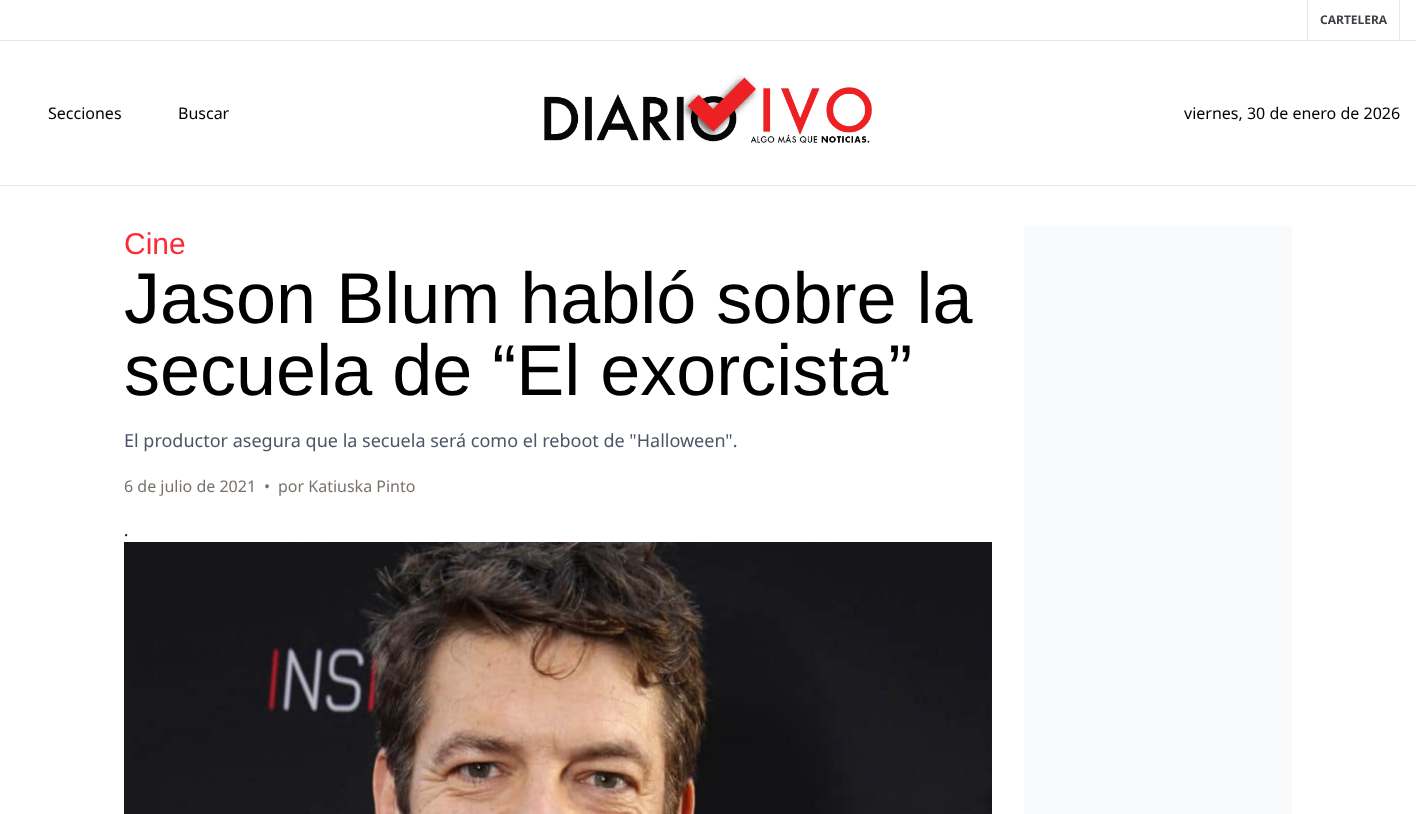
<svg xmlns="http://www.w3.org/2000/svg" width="1416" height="814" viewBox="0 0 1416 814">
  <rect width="100%" height="100%" fill="rgb(255,255,255)"/>
  <rect x="0" y="185" width="1416" height="1" fill="rgb(229,231,235)"/>
  <rect x="0" y="40" width="1416" height="1" fill="rgb(229,231,235)"/>
  <rect x="1399" y="0" width="1" height="40" fill="rgb(229,231,235)"/>
  <rect x="1307" y="0" width="1" height="40" fill="rgb(229,231,235)"/>
  <text x="1320" y="24" font-family="Noto Sans" font-size="12" font-weight="bold" fill="rgb(63,63,71)">CARTELERA</text>
  <g font-family="Noto Sans" font-size="16" fill="rgb(0,0,0)">
    <text x="48" y="119">Secciones</text>
    <text x="178" y="119">Buscar</text>
  </g>
  <image x="544" y="75" width="328" height="68" href="pic1.png"/>
  <text x="1184" y="119" font-family="Noto Sans" font-size="16" fill="rgb(0,0,0)">viernes, 30 de enero de 2026</text>
  <text x="124" y="254" font-family="Liberation Sans" font-size="30" fill="rgb(251,44,54)">Cine</text>
  <g font-family="Liberation Sans" font-size="72" fill="rgb(0,0,0)">
    <text>
      <tspan x="124" y="323">Jason Blum habló sobre la</tspan>
      <tspan x="124" y="395">secuela de “El exorcista”</tspan>
    </text>
  </g>
  <text x="124" y="447" font-family="Noto Sans" font-size="18" fill="rgb(74,85,101)">El productor asegura que la secuela será como el reboot de "Halloween".</text>
  <g font-family="Noto Sans" font-size="16" fill="rgb(121,113,107)">
    <text x="124" y="492">6 de julio de 2021</text>
    <text x="264" y="492">•</text>
    <text x="278" y="492">por Katiuska Pinto</text>
  </g>
  <text x="124" y="536" font-family="Noto Sans" font-size="16" fill="rgb(0,0,0)">.</text>
  <image x="124" y="542" width="868" height="272" href="pic2.png"/>
  <rect x="1024" y="226" width="268" height="588" fill="rgb(249,250,251)"/>
</svg>
